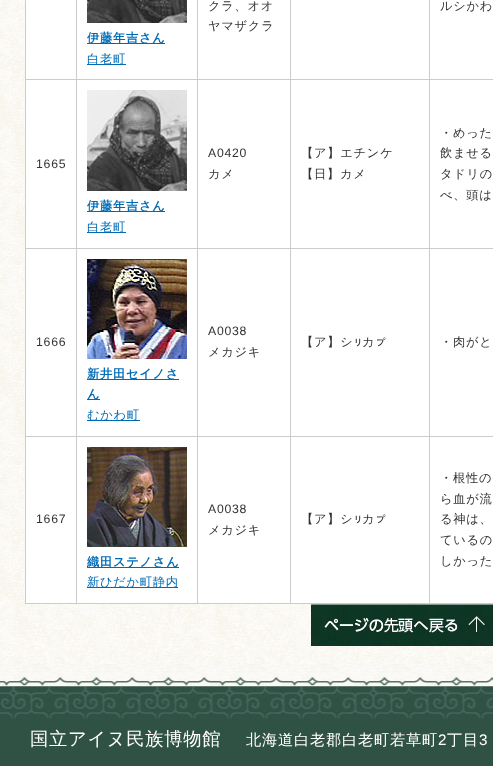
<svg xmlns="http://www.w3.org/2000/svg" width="493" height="766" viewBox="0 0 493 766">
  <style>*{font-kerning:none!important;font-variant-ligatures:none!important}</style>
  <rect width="100%" height="100%" fill="rgb(255,255,255)"/>
  <image x="0" y="0" width="493" height="664" href="pic1.png"/>
  <rect x="26" y="0" width="50" height="79" fill="rgb(255,255,255)"/>
  <rect x="198" y="0" width="92" height="79" fill="rgb(255,255,255)"/>
  <rect x="429" y="79" width="64" height="1" fill="rgb(204,204,204)"/>
  <rect x="429" y="248" width="64" height="1" fill="rgb(204,204,204)"/>
  <rect x="429" y="436" width="64" height="1" fill="rgb(204,204,204)"/>
  <rect x="429" y="603" width="64" height="1" fill="rgb(204,204,204)"/>
  <rect x="429" y="436" width="1" height="168" fill="rgb(204,204,204)"/>
  <rect x="290" y="436" width="140" height="1" fill="rgb(204,204,204)"/>
  <rect x="429" y="248" width="1" height="189" fill="rgb(204,204,204)"/>
  <rect x="290" y="248" width="140" height="1" fill="rgb(204,204,204)"/>
  <rect x="429" y="79" width="1" height="170" fill="rgb(204,204,204)"/>
  <rect x="290" y="79" width="140" height="1" fill="rgb(204,204,204)"/>
  <rect x="290" y="603" width="140" height="1" fill="rgb(204,204,204)"/>
  <rect x="290" y="436" width="1" height="168" fill="rgb(204,204,204)"/>
  <rect x="197" y="436" width="94" height="1" fill="rgb(204,204,204)"/>
  <rect x="290" y="248" width="1" height="189" fill="rgb(204,204,204)"/>
  <rect x="197" y="248" width="94" height="1" fill="rgb(204,204,204)"/>
  <rect x="290" y="79" width="1" height="170" fill="rgb(204,204,204)"/>
  <rect x="197" y="79" width="94" height="1" fill="rgb(204,204,204)"/>
  <rect x="197" y="603" width="94" height="1" fill="rgb(204,204,204)"/>
  <rect x="197" y="436" width="1" height="168" fill="rgb(204,204,204)"/>
  <rect x="76" y="436" width="122" height="1" fill="rgb(204,204,204)"/>
  <rect x="197" y="248" width="1" height="189" fill="rgb(204,204,204)"/>
  <rect x="76" y="248" width="122" height="1" fill="rgb(204,204,204)"/>
  <rect x="197" y="79" width="1" height="170" fill="rgb(204,204,204)"/>
  <rect x="76" y="79" width="122" height="1" fill="rgb(204,204,204)"/>
  <rect x="197" y="0" width="1" height="80" fill="rgb(204,204,204)"/>
  <g font-family="WenQuanYi Zen Hei" font-size="12.25" font-weight="500" letter-spacing="0.75" fill="rgb(51,51,51)">
    <text>
      <tspan x="208" y="10">クラ、オオ</tspan>
      <tspan x="208" y="30">ヤマザクラ</tspan>
    </text>
  </g>
  <rect x="291" y="0" width="138" height="79" fill="rgb(255,255,255)"/>
  <rect x="290" y="0" width="1" height="80" fill="rgb(204,204,204)"/>
  <rect x="430" y="0" width="63" height="79" fill="rgb(255,255,255)"/>
  <rect x="429" y="0" width="1" height="80" fill="rgb(204,204,204)"/>
  <text x="440" y="10" font-family="WenQuanYi Zen Hei" font-size="12.25" font-weight="500" letter-spacing="0.75" fill="rgb(51,51,51)">ルシかわ</text>
  <rect x="77" y="0" width="120" height="79" fill="rgb(255,255,255)"/>
  <rect x="76" y="603" width="122" height="1" fill="rgb(204,204,204)"/>
  <rect x="76" y="436" width="1" height="168" fill="rgb(204,204,204)"/>
  <rect x="25" y="436" width="52" height="1" fill="rgb(204,204,204)"/>
  <rect x="76" y="248" width="1" height="189" fill="rgb(204,204,204)"/>
  <rect x="25" y="248" width="52" height="1" fill="rgb(204,204,204)"/>
  <rect x="76" y="79" width="1" height="170" fill="rgb(204,204,204)"/>
  <rect x="25" y="79" width="52" height="1" fill="rgb(204,204,204)"/>
  <rect x="76" y="0" width="1" height="80" fill="rgb(204,204,204)"/>
  <image x="87" y="0" width="100" height="23" href="pic2.png"/>
  <rect x="87" y="43" width="78" height="1" fill="rgb(0,107,180)"/>
  <text x="87" y="42" font-family="WenQuanYi Zen Hei" font-size="12.25" font-weight="bold" letter-spacing="0.75" fill="rgb(0,107,180)">伊藤年吉さん</text>
  <rect x="87" y="64" width="39" height="1" fill="rgb(0,107,180)"/>
  <text x="87" y="63" font-family="WenQuanYi Zen Hei" font-size="12.25" font-weight="500" letter-spacing="0.75" fill="rgb(0,107,180)">白老町</text>
  <rect x="26" y="80" width="50" height="168" fill="rgb(255,255,255)"/>
  <rect x="25" y="603" width="52" height="1" fill="rgb(204,204,204)"/>
  <rect x="25" y="436" width="1" height="168" fill="rgb(204,204,204)"/>
  <rect x="25" y="248" width="1" height="189" fill="rgb(204,204,204)"/>
  <rect x="25" y="0" width="1" height="249" fill="rgb(204,204,204)"/>
  <text x="36" y="168" font-family="Liberation Sans" font-size="12.25" letter-spacing="0.75" fill="rgb(51,51,51)">1665</text>
  <rect x="198" y="80" width="92" height="168" fill="rgb(255,255,255)"/>
  <text x="208" y="157" font-family="Liberation Sans" font-size="12.25" letter-spacing="0.75" fill="rgb(51,51,51)">A0420</text>
  <text x="208" y="178" font-family="WenQuanYi Zen Hei" font-size="12.25" font-weight="500" letter-spacing="0.75" fill="rgb(51,51,51)">カメ</text>
  <rect x="291" y="80" width="138" height="168" fill="rgb(255,255,255)"/>
  <g font-family="WenQuanYi Zen Hei" font-size="12.25" font-weight="500" letter-spacing="0.75" fill="rgb(51,51,51)">
    <text>
      <tspan x="301" y="157">【ア】エチンケ</tspan>
      <tspan x="301" y="178">【日】カメ</tspan>
    </text>
  </g>
  <rect x="430" y="80" width="63" height="168" fill="rgb(255,255,255)"/>
  <g font-family="WenQuanYi Zen Hei" font-size="12.25" font-weight="500" letter-spacing="0.75" fill="rgb(51,51,51)">
    <text>
      <tspan x="440" y="137">・めった</tspan>
      <tspan x="440" y="157">飲ませる</tspan>
      <tspan x="440" y="178">タドリの</tspan>
      <tspan x="440" y="199">べ、頭は</tspan>
    </text>
  </g>
  <rect x="77" y="80" width="120" height="168" fill="rgb(255,255,255)"/>
  <image x="87" y="90" width="100" height="101" href="pic3.png"/>
  <rect x="87" y="211" width="78" height="1" fill="rgb(0,107,180)"/>
  <text x="87" y="210" font-family="WenQuanYi Zen Hei" font-size="12.25" font-weight="bold" letter-spacing="0.75" fill="rgb(0,107,180)">伊藤年吉さん</text>
  <rect x="87" y="232" width="39" height="1" fill="rgb(0,107,180)"/>
  <text x="87" y="231" font-family="WenQuanYi Zen Hei" font-size="12.25" font-weight="500" letter-spacing="0.75" fill="rgb(0,107,180)">白老町</text>
  <rect x="26" y="249" width="50" height="187" fill="rgb(255,255,255)"/>
  <text x="36" y="346" font-family="Liberation Sans" font-size="12.25" letter-spacing="0.75" fill="rgb(51,51,51)">1666</text>
  <rect x="198" y="249" width="92" height="187" fill="rgb(255,255,255)"/>
  <text x="208" y="335" font-family="Liberation Sans" font-size="12.25" letter-spacing="0.75" fill="rgb(51,51,51)">A0038</text>
  <text x="208" y="356" font-family="WenQuanYi Zen Hei" font-size="12.25" font-weight="500" letter-spacing="0.75" fill="rgb(51,51,51)">メカジキ</text>
  <rect x="291" y="249" width="138" height="187" fill="rgb(255,255,255)"/>
  <text x="301" y="346" font-family="WenQuanYi Zen Hei" font-size="12.25" font-weight="500" letter-spacing="0.75" fill="rgb(51,51,51)">【ア】シ</text>
  <text x="354" y="346" font-family="IPAPGothic" font-size="12.25" letter-spacing="0.75" fill="rgb(51,51,51)">ㇼ</text>
  <text x="362" y="346" font-family="WenQuanYi Zen Hei" font-size="12.25" font-weight="500" letter-spacing="0.75" fill="rgb(51,51,51)">カ</text>
  <text x="376" y="346" font-family="IPAPGothic" font-size="12.25" letter-spacing="0.75" fill="rgb(51,51,51)">ㇷ゚</text>
  <rect x="430" y="249" width="63" height="187" fill="rgb(255,255,255)"/>
  <text x="440" y="346" font-family="WenQuanYi Zen Hei" font-size="12.25" font-weight="500" letter-spacing="0.75" fill="rgb(51,51,51)">・肉がと</text>
  <rect x="77" y="249" width="120" height="187" fill="rgb(255,255,255)"/>
  <image x="87" y="259" width="100" height="100" href="pic4.png"/>
  <rect x="87" y="379" width="92" height="1" fill="rgb(0,107,180)"/>
  <text x="87" y="378" font-family="WenQuanYi Zen Hei" font-size="12.25" font-weight="bold" letter-spacing="0.75" fill="rgb(0,107,180)">新井田セイノさ</text>
  <rect x="87" y="399" width="13" height="1" fill="rgb(0,107,180)"/>
  <text x="87" y="398" font-family="WenQuanYi Zen Hei" font-size="12.25" font-weight="bold" letter-spacing="0.75" fill="rgb(0,107,180)">ん</text>
  <rect x="87" y="420" width="53" height="1" fill="rgb(0,107,180)"/>
  <text x="87" y="419" font-family="WenQuanYi Zen Hei" font-size="12.25" font-weight="500" letter-spacing="0.75" fill="rgb(0,107,180)">むかわ町</text>
  <rect x="26" y="437" width="50" height="166" fill="rgb(255,255,255)"/>
  <text x="36" y="523" font-family="Liberation Sans" font-size="12.25" letter-spacing="0.75" fill="rgb(51,51,51)">1667</text>
  <rect x="198" y="437" width="92" height="166" fill="rgb(255,255,255)"/>
  <text x="208" y="513" font-family="Liberation Sans" font-size="12.25" letter-spacing="0.75" fill="rgb(51,51,51)">A0038</text>
  <text x="208" y="534" font-family="WenQuanYi Zen Hei" font-size="12.25" font-weight="500" letter-spacing="0.75" fill="rgb(51,51,51)">メカジキ</text>
  <rect x="291" y="437" width="138" height="166" fill="rgb(255,255,255)"/>
  <text x="301" y="523" font-family="WenQuanYi Zen Hei" font-size="12.25" font-weight="500" letter-spacing="0.75" fill="rgb(51,51,51)">【ア】シ</text>
  <text x="354" y="523" font-family="IPAPGothic" font-size="12.25" letter-spacing="0.75" fill="rgb(51,51,51)">ㇼ</text>
  <text x="362" y="523" font-family="WenQuanYi Zen Hei" font-size="12.25" font-weight="500" letter-spacing="0.75" fill="rgb(51,51,51)">カ</text>
  <text x="376" y="523" font-family="IPAPGothic" font-size="12.25" letter-spacing="0.75" fill="rgb(51,51,51)">ㇷ゚</text>
  <rect x="430" y="437" width="63" height="166" fill="rgb(255,255,255)"/>
  <g font-family="WenQuanYi Zen Hei" font-size="12.25" font-weight="500" letter-spacing="0.75" fill="rgb(51,51,51)">
    <text>
      <tspan x="440" y="482">・根性の</tspan>
      <tspan x="440" y="503">ら血が流</tspan>
      <tspan x="440" y="523">る神は、</tspan>
      <tspan x="440" y="544">ているの</tspan>
      <tspan x="440" y="565">しかった</tspan>
    </text>
  </g>
  <rect x="77" y="437" width="120" height="166" fill="rgb(255,255,255)"/>
  <image x="87" y="447" width="100" height="100" href="pic5.png"/>
  <rect x="87" y="567" width="92" height="1" fill="rgb(0,107,180)"/>
  <text x="87" y="566" font-family="WenQuanYi Zen Hei" font-size="12.25" font-weight="bold" letter-spacing="0.75" fill="rgb(0,107,180)">織田ステノさん</text>
  <rect x="87" y="587" width="91" height="1" fill="rgb(0,107,180)"/>
  <text x="87" y="586" font-family="WenQuanYi Zen Hei" font-size="12.25" font-weight="500" letter-spacing="0.75" fill="rgb(0,107,180)">新ひだか町静内</text>
  <rect x="0" y="719" width="493" height="47" fill="rgb(48,82,68)"/>
  <image x="0" y="664" width="493" height="55" href="pic6.png"/>
  <image x="311" y="604" width="182" height="42" href="pic7.png"/>
  <text x="30" y="745" font-family="WenQuanYi Zen Hei" font-size="18.25" font-weight="500" letter-spacing="0.75" fill="rgb(255,255,255)">国立アイヌ民族博物館</text>
  <text x="246" y="745" font-family="WenQuanYi Zen Hei" font-size="15.25" font-weight="500" letter-spacing="0.75" fill="rgb(255,255,255)">北海道白老郡白老町若草町</text>
  <text x="438" y="745" font-family="Liberation Sans" font-size="15.25" letter-spacing="0.75" fill="rgb(255,255,255)">2</text>
  <text x="447" y="745" font-family="WenQuanYi Zen Hei" font-size="15.25" font-weight="500" letter-spacing="0.75" fill="rgb(255,255,255)">丁目</text>
  <text x="479" y="745" font-family="Liberation Sans" font-size="15.25" letter-spacing="0.75" fill="rgb(255,255,255)">3</text>
</svg>
